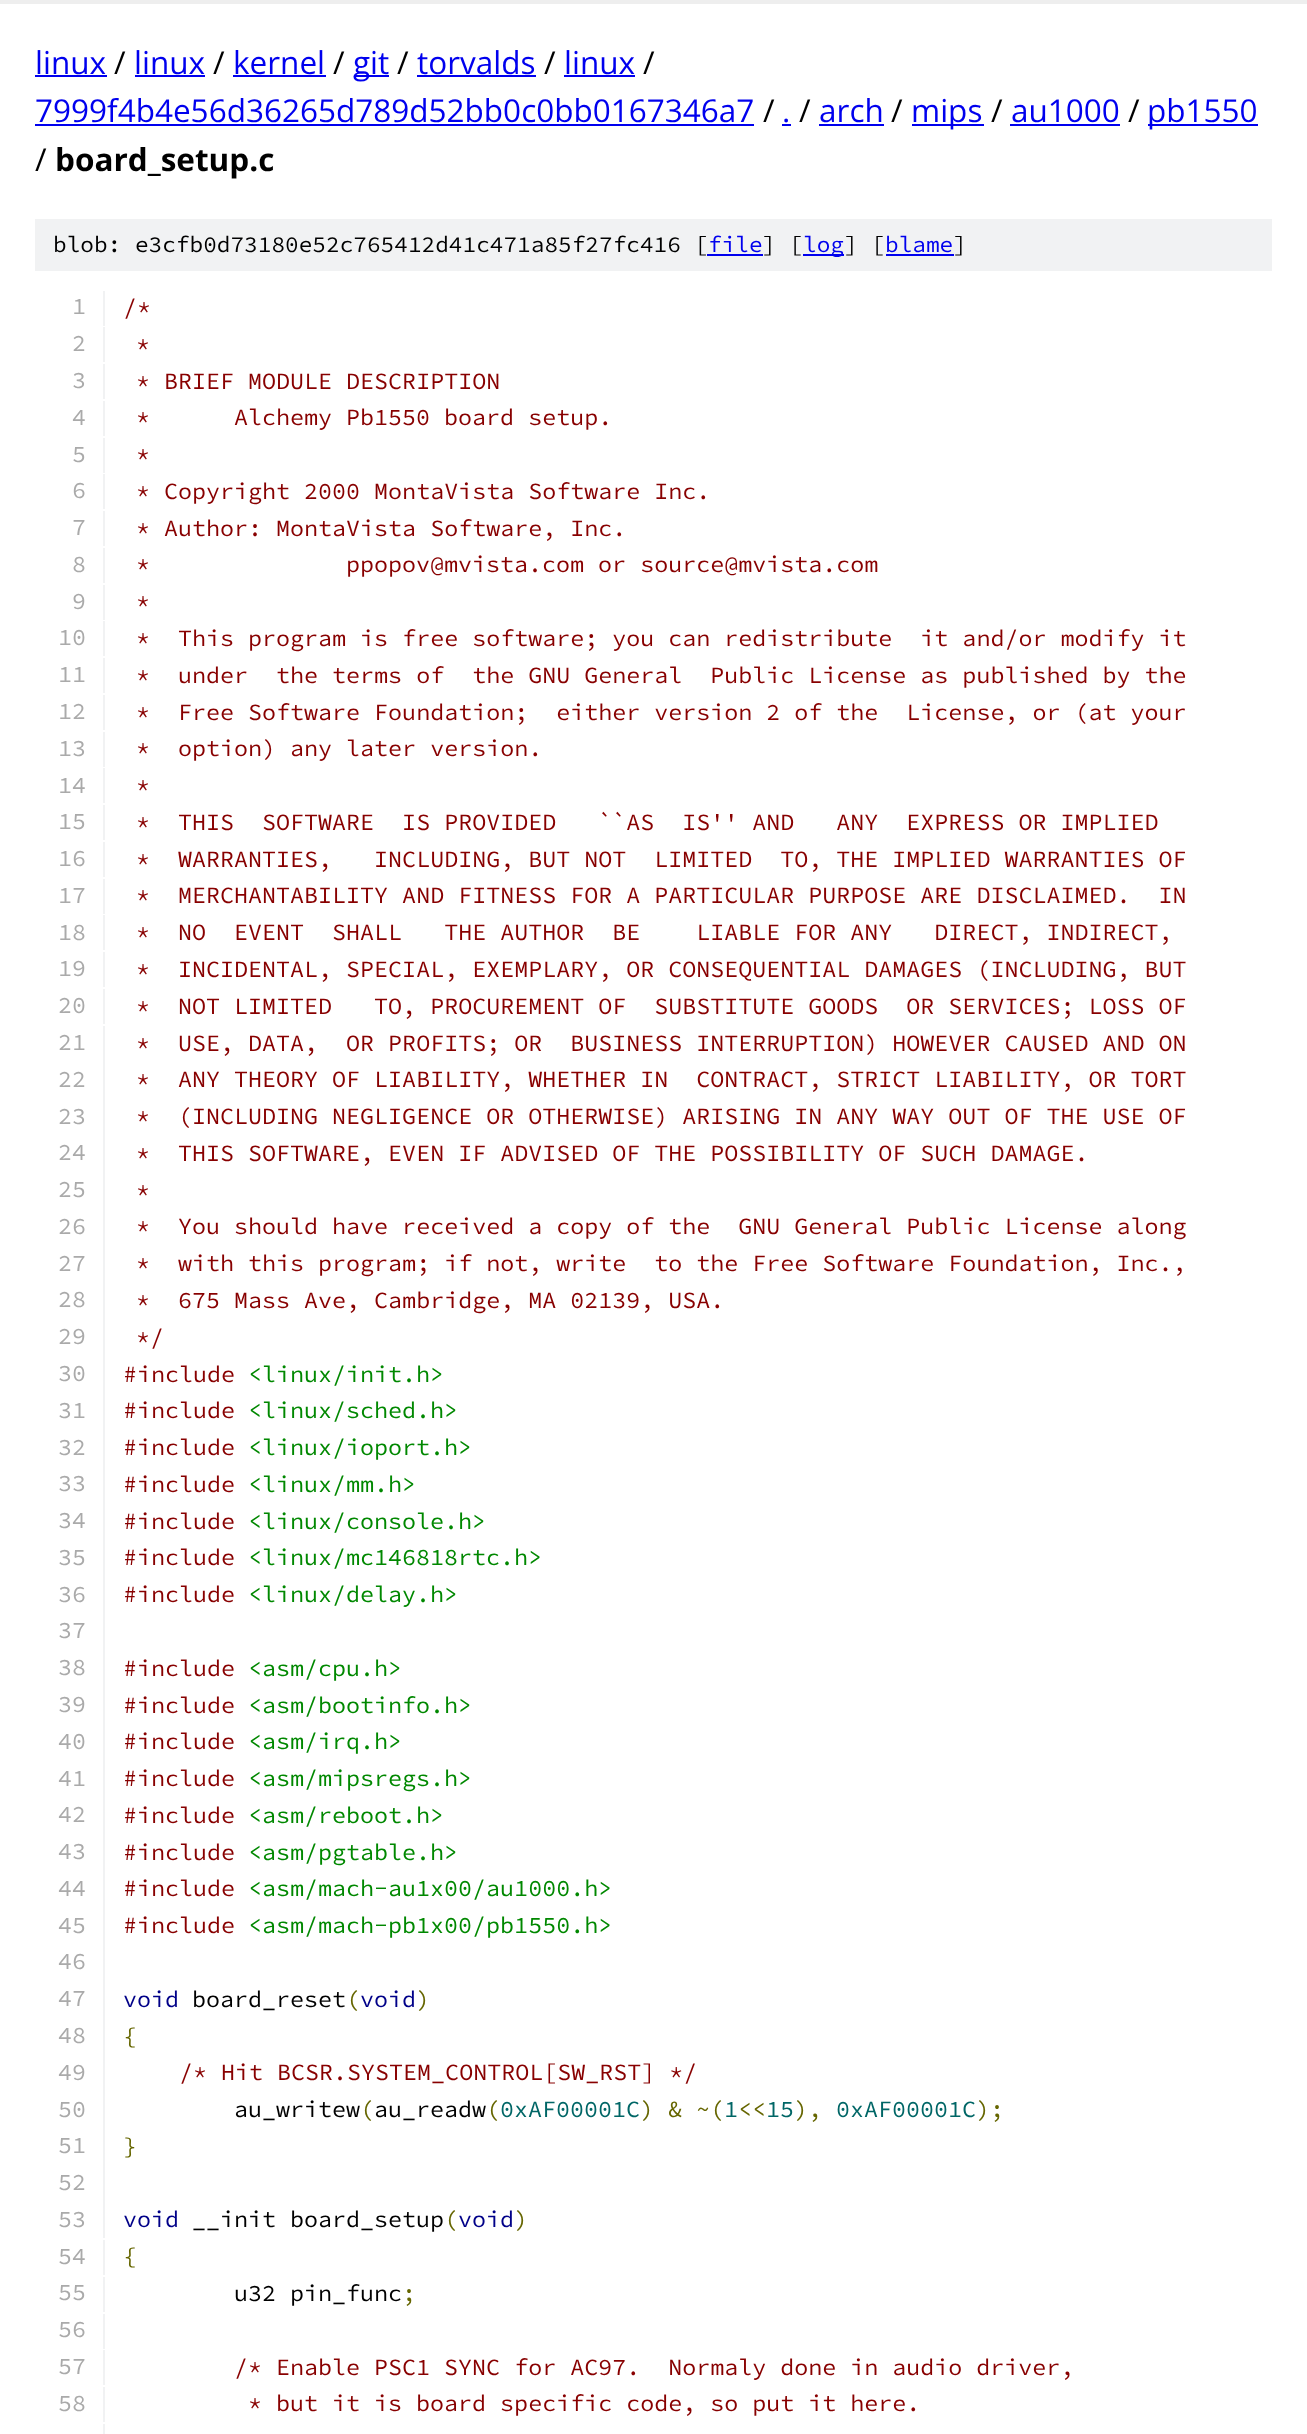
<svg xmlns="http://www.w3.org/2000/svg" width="1307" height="2434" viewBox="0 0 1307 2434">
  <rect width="100%" height="100%" fill="rgb(255,255,255)"/>
  <rect x="0" y="0" width="1307" height="4" fill="rgb(238,238,238)"/>
  <text x="35" y="74" font-family="Open Sans" font-size="31.5" fill="rgb(0,0,238)">linux</text>
  <rect x="35" y="75" width="72" height="2" fill="rgb(0,0,238)"/>
  <text x="114" y="74" font-family="Open Sans" font-size="31.5" fill="rgb(0,0,0)">/</text>
  <text x="134" y="74" font-family="Open Sans" font-size="31.5" fill="rgb(0,0,238)">linux</text>
  <rect x="135" y="75" width="70" height="2" fill="rgb(0,0,238)"/>
  <text x="213" y="74" font-family="Open Sans" font-size="31.5" fill="rgb(0,0,0)">/</text>
  <text x="233" y="74" font-family="Open Sans" font-size="31.5" fill="rgb(0,0,238)">kernel</text>
  <rect x="233" y="75" width="93" height="2" fill="rgb(0,0,238)"/>
  <text x="333" y="74" font-family="Open Sans" font-size="31.5" fill="rgb(0,0,0)">/</text>
  <rect x="354" y="75" width="35" height="2" fill="rgb(0,0,238)"/>
  <text x="353" y="74" font-family="Open Sans" font-size="31.5" fill="rgb(0,0,238)">git</text>
  <text x="397" y="74" font-family="Open Sans" font-size="31.5" fill="rgb(0,0,0)">/</text>
  <text x="417" y="74" font-family="Open Sans" font-size="31.5" fill="rgb(0,0,238)">torvalds</text>
  <rect x="417" y="75" width="119" height="2" fill="rgb(0,0,238)"/>
  <text x="544" y="74" font-family="Open Sans" font-size="31.5" fill="rgb(0,0,0)">/</text>
  <text x="564" y="74" font-family="Open Sans" font-size="31.5" fill="rgb(0,0,238)">linux</text>
  <rect x="564" y="75" width="71" height="2" fill="rgb(0,0,238)"/>
  <text x="643" y="74" font-family="Open Sans" font-size="31.5" fill="rgb(0,0,0)">/</text>
  <text x="35" y="122" font-family="Open Sans" font-size="31.5" fill="rgb(0,0,238)">7999f4b4e56d36265d789d52bb0c0bb0167346a7</text>
  <rect x="35" y="124" width="719" height="2" fill="rgb(0,0,238)"/>
  <text x="763" y="122" font-family="Open Sans" font-size="31.5" fill="rgb(0,0,0)">/</text>
  <text x="782" y="122" font-family="Open Sans" font-size="31.5" fill="rgb(0,0,238)">.</text>
  <rect x="782" y="124" width="9" height="2" fill="rgb(0,0,238)"/>
  <text x="799" y="122" font-family="Open Sans" font-size="31.5" fill="rgb(0,0,0)">/</text>
  <text x="819" y="122" font-family="Open Sans" font-size="31.5" fill="rgb(0,0,238)">arch</text>
  <rect x="819" y="124" width="65" height="2" fill="rgb(0,0,238)"/>
  <text x="891" y="122" font-family="Open Sans" font-size="31.5" fill="rgb(0,0,0)">/</text>
  <rect x="912" y="124" width="72" height="2" fill="rgb(0,0,238)"/>
  <text x="911" y="122" font-family="Open Sans" font-size="31.5" fill="rgb(0,0,238)">mips</text>
  <text x="991" y="122" font-family="Open Sans" font-size="31.5" fill="rgb(0,0,0)">/</text>
  <text x="1011" y="122" font-family="Open Sans" font-size="31.5" fill="rgb(0,0,238)">au1000</text>
  <rect x="1010" y="124" width="110" height="2" fill="rgb(0,0,238)"/>
  <text x="1128" y="122" font-family="Open Sans" font-size="31.5" fill="rgb(0,0,0)">/</text>
  <rect x="1148" y="124" width="110" height="2" fill="rgb(0,0,238)"/>
  <text x="1147" y="122" font-family="Open Sans" font-size="31.5" fill="rgb(0,0,238)">pb1550</text>
  <text x="35" y="171" font-family="Open Sans" font-size="31.5" fill="rgb(0,0,0)">/</text>
  <text x="55" y="171" font-family="Open Sans" font-size="31.5" font-weight="bold" fill="rgb(0,0,0)">board_setup.c</text>
  <rect x="35" y="219" width="1237" height="52" fill="rgb(241,242,243)"/>
  <text x="53" y="252" font-family="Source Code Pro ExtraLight" font-size="22.75" font-weight="200" fill="rgb(0,0,0)">blob: e3cfb0d73180e52c765412d41c471a85f27fc416 [</text>
  <text x="708" y="252" font-family="Source Code Pro ExtraLight" font-size="22.75" font-weight="200" fill="rgb(0,0,238)">file</text>
  <rect x="707" y="254" width="56" height="2" fill="rgb(0,0,238)"/>
  <text x="762" y="252" font-family="Source Code Pro ExtraLight" font-size="22.75" font-weight="200" fill="rgb(0,0,0)">] [</text>
  <rect x="803" y="254" width="41" height="2" fill="rgb(0,0,238)"/>
  <text x="803" y="252" font-family="Source Code Pro ExtraLight" font-size="22.75" font-weight="200" fill="rgb(0,0,238)">log</text>
  <text x="844" y="252" font-family="Source Code Pro ExtraLight" font-size="22.75" font-weight="200" fill="rgb(0,0,0)">] [</text>
  <text x="885" y="252" font-family="Source Code Pro ExtraLight" font-size="22.75" font-weight="200" fill="rgb(0,0,238)">blame</text>
  <rect x="886" y="254" width="68" height="2" fill="rgb(0,0,238)"/>
  <text x="953" y="252" font-family="Source Code Pro ExtraLight" font-size="22.75" font-weight="200" fill="rgb(0,0,0)">]</text>
  <rect x="103" y="291" width="2" height="35" fill="rgb(241,242,243)"/>
  <text x="72" y="314" font-family="Source Code Pro ExtraLight" font-size="23.35" font-weight="200" fill="rgb(170,170,170)">1</text>
  <text x="123" y="315" font-family="Source Code Pro ExtraLight" font-size="23.35" font-weight="200" fill="rgb(136,0,0)">/*</text>
  <rect x="103" y="327" width="2" height="35" fill="rgb(241,242,243)"/>
  <text x="72" y="351" font-family="Source Code Pro ExtraLight" font-size="23.35" font-weight="200" fill="rgb(170,170,170)">2</text>
  <text x="136" y="352" font-family="Source Code Pro ExtraLight" font-size="23.35" font-weight="200" fill="rgb(136,0,0)">*</text>
  <rect x="103" y="364" width="2" height="35" fill="rgb(241,242,243)"/>
  <text x="72" y="388" font-family="Source Code Pro ExtraLight" font-size="23.35" font-weight="200" fill="rgb(170,170,170)">3</text>
  <text x="136" y="389" font-family="Source Code Pro ExtraLight" font-size="23.35" font-weight="200" fill="rgb(136,0,0)">* BRIEF MODULE DESCRIPTION</text>
  <rect x="103" y="401" width="2" height="35" fill="rgb(241,242,243)"/>
  <text x="72" y="425" font-family="Source Code Pro ExtraLight" font-size="23.35" font-weight="200" fill="rgb(170,170,170)">4</text>
  <g font-family="Source Code Pro ExtraLight" font-size="23.35" font-weight="200" fill="rgb(136,0,0)">
    <text x="136" y="425">*</text>
    <text x="234" y="425">Alchemy Pb1550 board setup.</text>
  </g>
  <rect x="103" y="438" width="2" height="35" fill="rgb(241,242,243)"/>
  <text x="72" y="462" font-family="Source Code Pro ExtraLight" font-size="23.35" font-weight="200" fill="rgb(170,170,170)">5</text>
  <text x="136" y="462" font-family="Source Code Pro ExtraLight" font-size="23.35" font-weight="200" fill="rgb(136,0,0)">*</text>
  <rect x="103" y="474" width="2" height="35" fill="rgb(241,242,243)"/>
  <text x="72" y="498" font-family="Source Code Pro ExtraLight" font-size="23.35" font-weight="200" fill="rgb(170,170,170)">6</text>
  <text x="136" y="499" font-family="Source Code Pro ExtraLight" font-size="23.35" font-weight="200" fill="rgb(136,0,0)">* Copyright 2000 MontaVista Software Inc.</text>
  <rect x="103" y="511" width="2" height="35" fill="rgb(241,242,243)"/>
  <text x="72" y="535" font-family="Source Code Pro ExtraLight" font-size="23.35" font-weight="200" fill="rgb(170,170,170)">7</text>
  <text x="136" y="536" font-family="Source Code Pro ExtraLight" font-size="23.35" font-weight="200" fill="rgb(136,0,0)">* Author: MontaVista Software, Inc.</text>
  <rect x="103" y="548" width="2" height="35" fill="rgb(241,242,243)"/>
  <text x="72" y="572" font-family="Source Code Pro ExtraLight" font-size="23.35" font-weight="200" fill="rgb(170,170,170)">8</text>
  <g font-family="Source Code Pro ExtraLight" font-size="23.35" font-weight="200" fill="rgb(136,0,0)">
    <text x="136" y="572">*</text>
    <text x="346" y="572">ppopov@mvista.com or source@mvista.com</text>
  </g>
  <rect x="103" y="585" width="2" height="35" fill="rgb(241,242,243)"/>
  <text x="72" y="609" font-family="Source Code Pro ExtraLight" font-size="23.35" font-weight="200" fill="rgb(170,170,170)">9</text>
  <text x="136" y="609" font-family="Source Code Pro ExtraLight" font-size="23.35" font-weight="200" fill="rgb(136,0,0)">*</text>
  <rect x="103" y="621" width="2" height="35" fill="rgb(241,242,243)"/>
  <text x="58" y="645" font-family="Source Code Pro ExtraLight" font-size="23.35" font-weight="200" fill="rgb(170,170,170)">10</text>
  <text x="136" y="646" font-family="Source Code Pro ExtraLight" font-size="23.35" font-weight="200" fill="rgb(136,0,0)" xml:space="preserve">*  This program is free software; you can redistribute  it and/or modify it</text>
  <rect x="103" y="658" width="2" height="35" fill="rgb(241,242,243)"/>
  <text x="58" y="682" font-family="Source Code Pro ExtraLight" font-size="23.35" font-weight="200" fill="rgb(170,170,170)">11</text>
  <text x="136" y="683" font-family="Source Code Pro ExtraLight" font-size="23.35" font-weight="200" fill="rgb(136,0,0)" xml:space="preserve">*  under  the terms of  the GNU General  Public License as published by the</text>
  <rect x="103" y="695" width="2" height="35" fill="rgb(241,242,243)"/>
  <text x="58" y="719" font-family="Source Code Pro ExtraLight" font-size="23.35" font-weight="200" fill="rgb(170,170,170)">12</text>
  <text x="136" y="720" font-family="Source Code Pro ExtraLight" font-size="23.35" font-weight="200" fill="rgb(136,0,0)" xml:space="preserve">*  Free Software Foundation;  either version 2 of the  License, or (at your</text>
  <rect x="103" y="732" width="2" height="35" fill="rgb(241,242,243)"/>
  <text x="58" y="756" font-family="Source Code Pro ExtraLight" font-size="23.35" font-weight="200" fill="rgb(170,170,170)">13</text>
  <text x="136" y="756" font-family="Source Code Pro ExtraLight" font-size="23.35" font-weight="200" fill="rgb(136,0,0)" xml:space="preserve">*  option) any later version.</text>
  <rect x="103" y="768" width="2" height="35" fill="rgb(241,242,243)"/>
  <text x="58" y="793" font-family="Source Code Pro ExtraLight" font-size="23.35" font-weight="200" fill="rgb(170,170,170)">14</text>
  <text x="136" y="793" font-family="Source Code Pro ExtraLight" font-size="23.35" font-weight="200" fill="rgb(136,0,0)">*</text>
  <rect x="103" y="805" width="2" height="35" fill="rgb(241,242,243)"/>
  <text x="58" y="829" font-family="Source Code Pro ExtraLight" font-size="23.35" font-weight="200" fill="rgb(170,170,170)">15</text>
  <text x="136" y="830" font-family="Source Code Pro ExtraLight" font-size="23.35" font-weight="200" fill="rgb(136,0,0)" xml:space="preserve">*  THIS  SOFTWARE  IS PROVIDED   ``AS  IS'' AND   ANY  EXPRESS OR IMPLIED</text>
  <rect x="103" y="842" width="2" height="35" fill="rgb(241,242,243)"/>
  <text x="58" y="866" font-family="Source Code Pro ExtraLight" font-size="23.35" font-weight="200" fill="rgb(170,170,170)">16</text>
  <text x="136" y="867" font-family="Source Code Pro ExtraLight" font-size="23.35" font-weight="200" fill="rgb(136,0,0)" xml:space="preserve">*  WARRANTIES,   INCLUDING, BUT NOT  LIMITED  TO, THE IMPLIED WARRANTIES OF</text>
  <rect x="103" y="879" width="2" height="35" fill="rgb(241,242,243)"/>
  <text x="58" y="903" font-family="Source Code Pro ExtraLight" font-size="23.35" font-weight="200" fill="rgb(170,170,170)">17</text>
  <text x="136" y="903" font-family="Source Code Pro ExtraLight" font-size="23.35" font-weight="200" fill="rgb(136,0,0)" xml:space="preserve">*  MERCHANTABILITY AND FITNESS FOR A PARTICULAR PURPOSE ARE DISCLAIMED.  IN</text>
  <rect x="103" y="915" width="2" height="35" fill="rgb(241,242,243)"/>
  <text x="58" y="940" font-family="Source Code Pro ExtraLight" font-size="23.35" font-weight="200" fill="rgb(170,170,170)">18</text>
  <text x="136" y="940" font-family="Source Code Pro ExtraLight" font-size="23.35" font-weight="200" fill="rgb(136,0,0)" xml:space="preserve">*  NO  EVENT  SHALL   THE AUTHOR  BE    LIABLE FOR ANY   DIRECT, INDIRECT,</text>
  <rect x="103" y="952" width="2" height="35" fill="rgb(241,242,243)"/>
  <text x="58" y="976" font-family="Source Code Pro ExtraLight" font-size="23.35" font-weight="200" fill="rgb(170,170,170)">19</text>
  <text x="136" y="977" font-family="Source Code Pro ExtraLight" font-size="23.35" font-weight="200" fill="rgb(136,0,0)" xml:space="preserve">*  INCIDENTAL, SPECIAL, EXEMPLARY, OR CONSEQUENTIAL DAMAGES (INCLUDING, BUT</text>
  <rect x="103" y="989" width="2" height="35" fill="rgb(241,242,243)"/>
  <text x="58" y="1013" font-family="Source Code Pro ExtraLight" font-size="23.35" font-weight="200" fill="rgb(170,170,170)">20</text>
  <text x="136" y="1014" font-family="Source Code Pro ExtraLight" font-size="23.35" font-weight="200" fill="rgb(136,0,0)" xml:space="preserve">*  NOT LIMITED   TO, PROCUREMENT OF  SUBSTITUTE GOODS  OR SERVICES; LOSS OF</text>
  <rect x="103" y="1026" width="2" height="1212" fill="rgb(241,242,243)"/>
  <text x="58" y="1050" font-family="Source Code Pro ExtraLight" font-size="23.35" font-weight="200" fill="rgb(170,170,170)">21</text>
  <text x="136" y="1051" font-family="Source Code Pro ExtraLight" font-size="23.35" font-weight="200" fill="rgb(136,0,0)" xml:space="preserve">*  USE, DATA,  OR PROFITS; OR  BUSINESS INTERRUPTION) HOWEVER CAUSED AND ON</text>
  <text x="58" y="1087" font-family="Source Code Pro ExtraLight" font-size="23.35" font-weight="200" fill="rgb(170,170,170)">22</text>
  <text x="136" y="1087" font-family="Source Code Pro ExtraLight" font-size="23.35" font-weight="200" fill="rgb(136,0,0)" xml:space="preserve">*  ANY THEORY OF LIABILITY, WHETHER IN  CONTRACT, STRICT LIABILITY, OR TORT</text>
  <text x="58" y="1124" font-family="Source Code Pro ExtraLight" font-size="23.35" font-weight="200" fill="rgb(170,170,170)">23</text>
  <text x="136" y="1124" font-family="Source Code Pro ExtraLight" font-size="23.35" font-weight="200" fill="rgb(136,0,0)" xml:space="preserve">*  (INCLUDING NEGLIGENCE OR OTHERWISE) ARISING IN ANY WAY OUT OF THE USE OF</text>
  <text x="58" y="1160" font-family="Source Code Pro ExtraLight" font-size="23.35" font-weight="200" fill="rgb(170,170,170)">24</text>
  <text x="136" y="1161" font-family="Source Code Pro ExtraLight" font-size="23.35" font-weight="200" fill="rgb(136,0,0)" xml:space="preserve">*  THIS SOFTWARE, EVEN IF ADVISED OF THE POSSIBILITY OF SUCH DAMAGE.</text>
  <text x="58" y="1197" font-family="Source Code Pro ExtraLight" font-size="23.35" font-weight="200" fill="rgb(170,170,170)">25</text>
  <text x="136" y="1198" font-family="Source Code Pro ExtraLight" font-size="23.35" font-weight="200" fill="rgb(136,0,0)">*</text>
  <text x="58" y="1234" font-family="Source Code Pro ExtraLight" font-size="23.35" font-weight="200" fill="rgb(170,170,170)">26</text>
  <text x="136" y="1234" font-family="Source Code Pro ExtraLight" font-size="23.35" font-weight="200" fill="rgb(136,0,0)" xml:space="preserve">*  You should have received a copy of the  GNU General Public License along</text>
  <text x="58" y="1271" font-family="Source Code Pro ExtraLight" font-size="23.35" font-weight="200" fill="rgb(170,170,170)">27</text>
  <text x="136" y="1271" font-family="Source Code Pro ExtraLight" font-size="23.35" font-weight="200" fill="rgb(136,0,0)" xml:space="preserve">*  with this program; if not, write  to the Free Software Foundation, Inc.,</text>
  <text x="58" y="1307" font-family="Source Code Pro ExtraLight" font-size="23.35" font-weight="200" fill="rgb(170,170,170)">28</text>
  <text x="136" y="1308" font-family="Source Code Pro ExtraLight" font-size="23.35" font-weight="200" fill="rgb(136,0,0)" xml:space="preserve">*  675 Mass Ave, Cambridge, MA 02139, USA.</text>
  <text x="58" y="1344" font-family="Source Code Pro ExtraLight" font-size="23.35" font-weight="200" fill="rgb(170,170,170)">29</text>
  <text x="136" y="1345" font-family="Source Code Pro ExtraLight" font-size="23.35" font-weight="200" fill="rgb(136,0,0)">*/</text>
  <text x="58" y="1381" font-family="Source Code Pro ExtraLight" font-size="23.35" font-weight="200" fill="rgb(170,170,170)">30</text>
  <text x="123" y="1382" font-family="Source Code Pro ExtraLight" font-size="23.35" font-weight="200" fill="rgb(136,0,0)">#include</text>
  <text x="248" y="1382" font-family="Source Code Pro ExtraLight" font-size="23.35" font-weight="200" fill="rgb(0,136,0)">&lt;linux/init.h&gt;</text>
  <text x="58" y="1418" font-family="Source Code Pro ExtraLight" font-size="23.35" font-weight="200" fill="rgb(170,170,170)">31</text>
  <text x="123" y="1418" font-family="Source Code Pro ExtraLight" font-size="23.35" font-weight="200" fill="rgb(136,0,0)">#include</text>
  <text x="248" y="1418" font-family="Source Code Pro ExtraLight" font-size="23.35" font-weight="200" fill="rgb(0,136,0)">&lt;linux/sched.h&gt;</text>
  <text x="58" y="1455" font-family="Source Code Pro ExtraLight" font-size="23.35" font-weight="200" fill="rgb(170,170,170)">32</text>
  <text x="123" y="1455" font-family="Source Code Pro ExtraLight" font-size="23.35" font-weight="200" fill="rgb(136,0,0)">#include</text>
  <text x="248" y="1455" font-family="Source Code Pro ExtraLight" font-size="23.35" font-weight="200" fill="rgb(0,136,0)">&lt;linux/ioport.h&gt;</text>
  <text x="58" y="1491" font-family="Source Code Pro ExtraLight" font-size="23.35" font-weight="200" fill="rgb(170,170,170)">33</text>
  <text x="123" y="1492" font-family="Source Code Pro ExtraLight" font-size="23.35" font-weight="200" fill="rgb(136,0,0)">#include</text>
  <text x="248" y="1492" font-family="Source Code Pro ExtraLight" font-size="23.35" font-weight="200" fill="rgb(0,136,0)">&lt;linux/mm.h&gt;</text>
  <text x="58" y="1528" font-family="Source Code Pro ExtraLight" font-size="23.35" font-weight="200" fill="rgb(170,170,170)">34</text>
  <text x="123" y="1529" font-family="Source Code Pro ExtraLight" font-size="23.35" font-weight="200" fill="rgb(136,0,0)">#include</text>
  <text x="248" y="1529" font-family="Source Code Pro ExtraLight" font-size="23.35" font-weight="200" fill="rgb(0,136,0)">&lt;linux/console.h&gt;</text>
  <text x="58" y="1565" font-family="Source Code Pro ExtraLight" font-size="23.35" font-weight="200" fill="rgb(170,170,170)">35</text>
  <text x="123" y="1565" font-family="Source Code Pro ExtraLight" font-size="23.35" font-weight="200" fill="rgb(136,0,0)">#include</text>
  <text x="248" y="1565" font-family="Source Code Pro ExtraLight" font-size="23.35" font-weight="200" fill="rgb(0,136,0)">&lt;linux/mc146818rtc.h&gt;</text>
  <text x="58" y="1602" font-family="Source Code Pro ExtraLight" font-size="23.35" font-weight="200" fill="rgb(170,170,170)">36</text>
  <text x="123" y="1602" font-family="Source Code Pro ExtraLight" font-size="23.35" font-weight="200" fill="rgb(136,0,0)">#include</text>
  <text x="248" y="1602" font-family="Source Code Pro ExtraLight" font-size="23.35" font-weight="200" fill="rgb(0,136,0)">&lt;linux/delay.h&gt;</text>
  <g font-family="Source Code Pro ExtraLight" font-size="23.35" font-weight="200" fill="rgb(170,170,170)">
    <text>
      <tspan x="58" y="1638">37</tspan>
      <tspan x="58" y="1675">38</tspan>
    </text>
  </g>
  <text x="123" y="1676" font-family="Source Code Pro ExtraLight" font-size="23.35" font-weight="200" fill="rgb(136,0,0)">#include</text>
  <text x="248" y="1676" font-family="Source Code Pro ExtraLight" font-size="23.35" font-weight="200" fill="rgb(0,136,0)">&lt;asm/cpu.h&gt;</text>
  <text x="58" y="1712" font-family="Source Code Pro ExtraLight" font-size="23.35" font-weight="200" fill="rgb(170,170,170)">39</text>
  <text x="123" y="1713" font-family="Source Code Pro ExtraLight" font-size="23.35" font-weight="200" fill="rgb(136,0,0)">#include</text>
  <text x="248" y="1713" font-family="Source Code Pro ExtraLight" font-size="23.35" font-weight="200" fill="rgb(0,136,0)">&lt;asm/bootinfo.h&gt;</text>
  <text x="58" y="1749" font-family="Source Code Pro ExtraLight" font-size="23.35" font-weight="200" fill="rgb(170,170,170)">40</text>
  <text x="123" y="1749" font-family="Source Code Pro ExtraLight" font-size="23.35" font-weight="200" fill="rgb(136,0,0)">#include</text>
  <text x="248" y="1749" font-family="Source Code Pro ExtraLight" font-size="23.35" font-weight="200" fill="rgb(0,136,0)">&lt;asm/irq.h&gt;</text>
  <text x="58" y="1786" font-family="Source Code Pro ExtraLight" font-size="23.35" font-weight="200" fill="rgb(170,170,170)">41</text>
  <text x="123" y="1786" font-family="Source Code Pro ExtraLight" font-size="23.35" font-weight="200" fill="rgb(136,0,0)">#include</text>
  <text x="248" y="1786" font-family="Source Code Pro ExtraLight" font-size="23.35" font-weight="200" fill="rgb(0,136,0)">&lt;asm/mipsregs.h&gt;</text>
  <text x="58" y="1822" font-family="Source Code Pro ExtraLight" font-size="23.35" font-weight="200" fill="rgb(170,170,170)">42</text>
  <text x="123" y="1823" font-family="Source Code Pro ExtraLight" font-size="23.35" font-weight="200" fill="rgb(136,0,0)">#include</text>
  <text x="248" y="1823" font-family="Source Code Pro ExtraLight" font-size="23.35" font-weight="200" fill="rgb(0,136,0)">&lt;asm/reboot.h&gt;</text>
  <text x="58" y="1859" font-family="Source Code Pro ExtraLight" font-size="23.35" font-weight="200" fill="rgb(170,170,170)">43</text>
  <text x="123" y="1860" font-family="Source Code Pro ExtraLight" font-size="23.35" font-weight="200" fill="rgb(136,0,0)">#include</text>
  <text x="248" y="1860" font-family="Source Code Pro ExtraLight" font-size="23.35" font-weight="200" fill="rgb(0,136,0)">&lt;asm/pgtable.h&gt;</text>
  <text x="58" y="1896" font-family="Source Code Pro ExtraLight" font-size="23.35" font-weight="200" fill="rgb(170,170,170)">44</text>
  <text x="123" y="1896" font-family="Source Code Pro ExtraLight" font-size="23.35" font-weight="200" fill="rgb(136,0,0)">#include</text>
  <text x="248" y="1896" font-family="Source Code Pro ExtraLight" font-size="23.35" font-weight="200" fill="rgb(0,136,0)">&lt;asm/mach-au1x00/au1000.h&gt;</text>
  <text x="58" y="1933" font-family="Source Code Pro ExtraLight" font-size="23.35" font-weight="200" fill="rgb(170,170,170)">45</text>
  <text x="123" y="1933" font-family="Source Code Pro ExtraLight" font-size="23.35" font-weight="200" fill="rgb(136,0,0)">#include</text>
  <text x="248" y="1933" font-family="Source Code Pro ExtraLight" font-size="23.35" font-weight="200" fill="rgb(0,136,0)">&lt;asm/mach-pb1x00/pb1550.h&gt;</text>
  <g font-family="Source Code Pro ExtraLight" font-size="23.35" font-weight="200" fill="rgb(170,170,170)">
    <text>
      <tspan x="58" y="1969">46</tspan>
      <tspan x="58" y="2006">47</tspan>
    </text>
  </g>
  <text x="123" y="2007" font-family="Source Code Pro ExtraLight" font-size="23.35" font-weight="200" fill="rgb(0,0,136)">void</text>
  <text x="192" y="2007" font-family="Source Code Pro ExtraLight" font-size="23.35" font-weight="200" fill="rgb(0,0,0)">board_reset</text>
  <text x="346" y="2007" font-family="Source Code Pro ExtraLight" font-size="23.35" font-weight="200" fill="rgb(102,102,0)">(</text>
  <text x="360" y="2007" font-family="Source Code Pro ExtraLight" font-size="23.35" font-weight="200" fill="rgb(0,0,136)">void</text>
  <text x="416" y="2007" font-family="Source Code Pro ExtraLight" font-size="23.35" font-weight="200" fill="rgb(102,102,0)">)</text>
  <text x="58" y="2043" font-family="Source Code Pro ExtraLight" font-size="23.35" font-weight="200" fill="rgb(170,170,170)">48</text>
  <text x="123" y="2044" font-family="Source Code Pro ExtraLight" font-size="23.35" font-weight="200" fill="rgb(102,102,0)">{</text>
  <text x="58" y="2080" font-family="Source Code Pro ExtraLight" font-size="23.35" font-weight="200" fill="rgb(170,170,170)">49</text>
  <text x="179" y="2080" font-family="Source Code Pro ExtraLight" font-size="23.35" font-weight="200" fill="rgb(136,0,0)">/* Hit BCSR.SYSTEM_CONTROL[SW_RST] */</text>
  <text x="58" y="2117" font-family="Source Code Pro ExtraLight" font-size="23.35" font-weight="200" fill="rgb(170,170,170)">50</text>
  <text x="234" y="2117" font-family="Source Code Pro ExtraLight" font-size="23.35" font-weight="200" fill="rgb(0,0,0)">au_writew au_readw</text>
  <g font-family="Source Code Pro ExtraLight" font-size="23.35" font-weight="200" fill="rgb(102,102,0)">
    <text x="360" y="2117">(</text>
    <text x="486" y="2117">(</text>
    <text x="640" y="2117">) &amp; ~( &lt;&lt;</text>
    <text x="794" y="2117">),</text>
    <text x="976" y="2117">);</text>
  </g>
  <g font-family="Source Code Pro ExtraLight" font-size="23.35" font-weight="200" fill="rgb(0,102,102)">
    <text x="500" y="2117">0xAF00001C</text>
    <text x="724" y="2117">1</text>
    <text x="766" y="2117">15</text>
    <text x="836" y="2117">0xAF00001C</text>
  </g>
  <text x="58" y="2153" font-family="Source Code Pro ExtraLight" font-size="23.35" font-weight="200" fill="rgb(170,170,170)">51</text>
  <text x="123" y="2154" font-family="Source Code Pro ExtraLight" font-size="23.35" font-weight="200" fill="rgb(102,102,0)">}</text>
  <g font-family="Source Code Pro ExtraLight" font-size="23.35" font-weight="200" fill="rgb(170,170,170)">
    <text>
      <tspan x="58" y="2190">52</tspan>
      <tspan x="58" y="2227">53</tspan>
    </text>
  </g>
  <text x="123" y="2227" font-family="Source Code Pro ExtraLight" font-size="23.35" font-weight="200" fill="rgb(0,0,136)">void</text>
  <text x="192" y="2227" font-family="Source Code Pro ExtraLight" font-size="23.35" font-weight="200" fill="rgb(0,0,0)">__init board_setup</text>
  <text x="444" y="2227" font-family="Source Code Pro ExtraLight" font-size="23.35" font-weight="200" fill="rgb(102,102,0)">(</text>
  <text x="458" y="2227" font-family="Source Code Pro ExtraLight" font-size="23.35" font-weight="200" fill="rgb(0,0,136)">void</text>
  <text x="514" y="2227" font-family="Source Code Pro ExtraLight" font-size="23.35" font-weight="200" fill="rgb(102,102,0)">)</text>
  <rect x="103" y="2240" width="2" height="35" fill="rgb(241,242,243)"/>
  <text x="58" y="2264" font-family="Source Code Pro ExtraLight" font-size="23.35" font-weight="200" fill="rgb(170,170,170)">54</text>
  <text x="123" y="2264" font-family="Source Code Pro ExtraLight" font-size="23.35" font-weight="200" fill="rgb(102,102,0)">{</text>
  <rect x="103" y="2277" width="2" height="35" fill="rgb(241,242,243)"/>
  <text x="58" y="2300" font-family="Source Code Pro ExtraLight" font-size="23.35" font-weight="200" fill="rgb(170,170,170)">55</text>
  <text x="234" y="2301" font-family="Source Code Pro ExtraLight" font-size="23.35" font-weight="200" fill="rgb(0,0,0)">u32 pin_func</text>
  <text x="402" y="2301" font-family="Source Code Pro ExtraLight" font-size="23.35" font-weight="200" fill="rgb(102,102,0)">;</text>
  <rect x="103" y="2314" width="2" height="35" fill="rgb(241,242,243)"/>
  <text x="58" y="2337" font-family="Source Code Pro ExtraLight" font-size="23.35" font-weight="200" fill="rgb(170,170,170)">56</text>
  <rect x="103" y="2350" width="2" height="35" fill="rgb(241,242,243)"/>
  <text x="58" y="2374" font-family="Source Code Pro ExtraLight" font-size="23.35" font-weight="200" fill="rgb(170,170,170)">57</text>
  <text x="234" y="2375" font-family="Source Code Pro ExtraLight" font-size="23.35" font-weight="200" fill="rgb(136,0,0)" xml:space="preserve">/* Enable PSC1 SYNC for AC97.  Normaly done in audio driver,</text>
  <rect x="103" y="2387" width="2" height="35" fill="rgb(241,242,243)"/>
  <text x="58" y="2411" font-family="Source Code Pro ExtraLight" font-size="23.35" font-weight="200" fill="rgb(170,170,170)">58</text>
  <text x="248" y="2411" font-family="Source Code Pro ExtraLight" font-size="23.35" font-weight="200" fill="rgb(136,0,0)">* but it is board specific code, so put it here.</text>
  <rect x="103" y="2424" width="2" height="10" fill="rgb(241,242,243)"/>
</svg>
